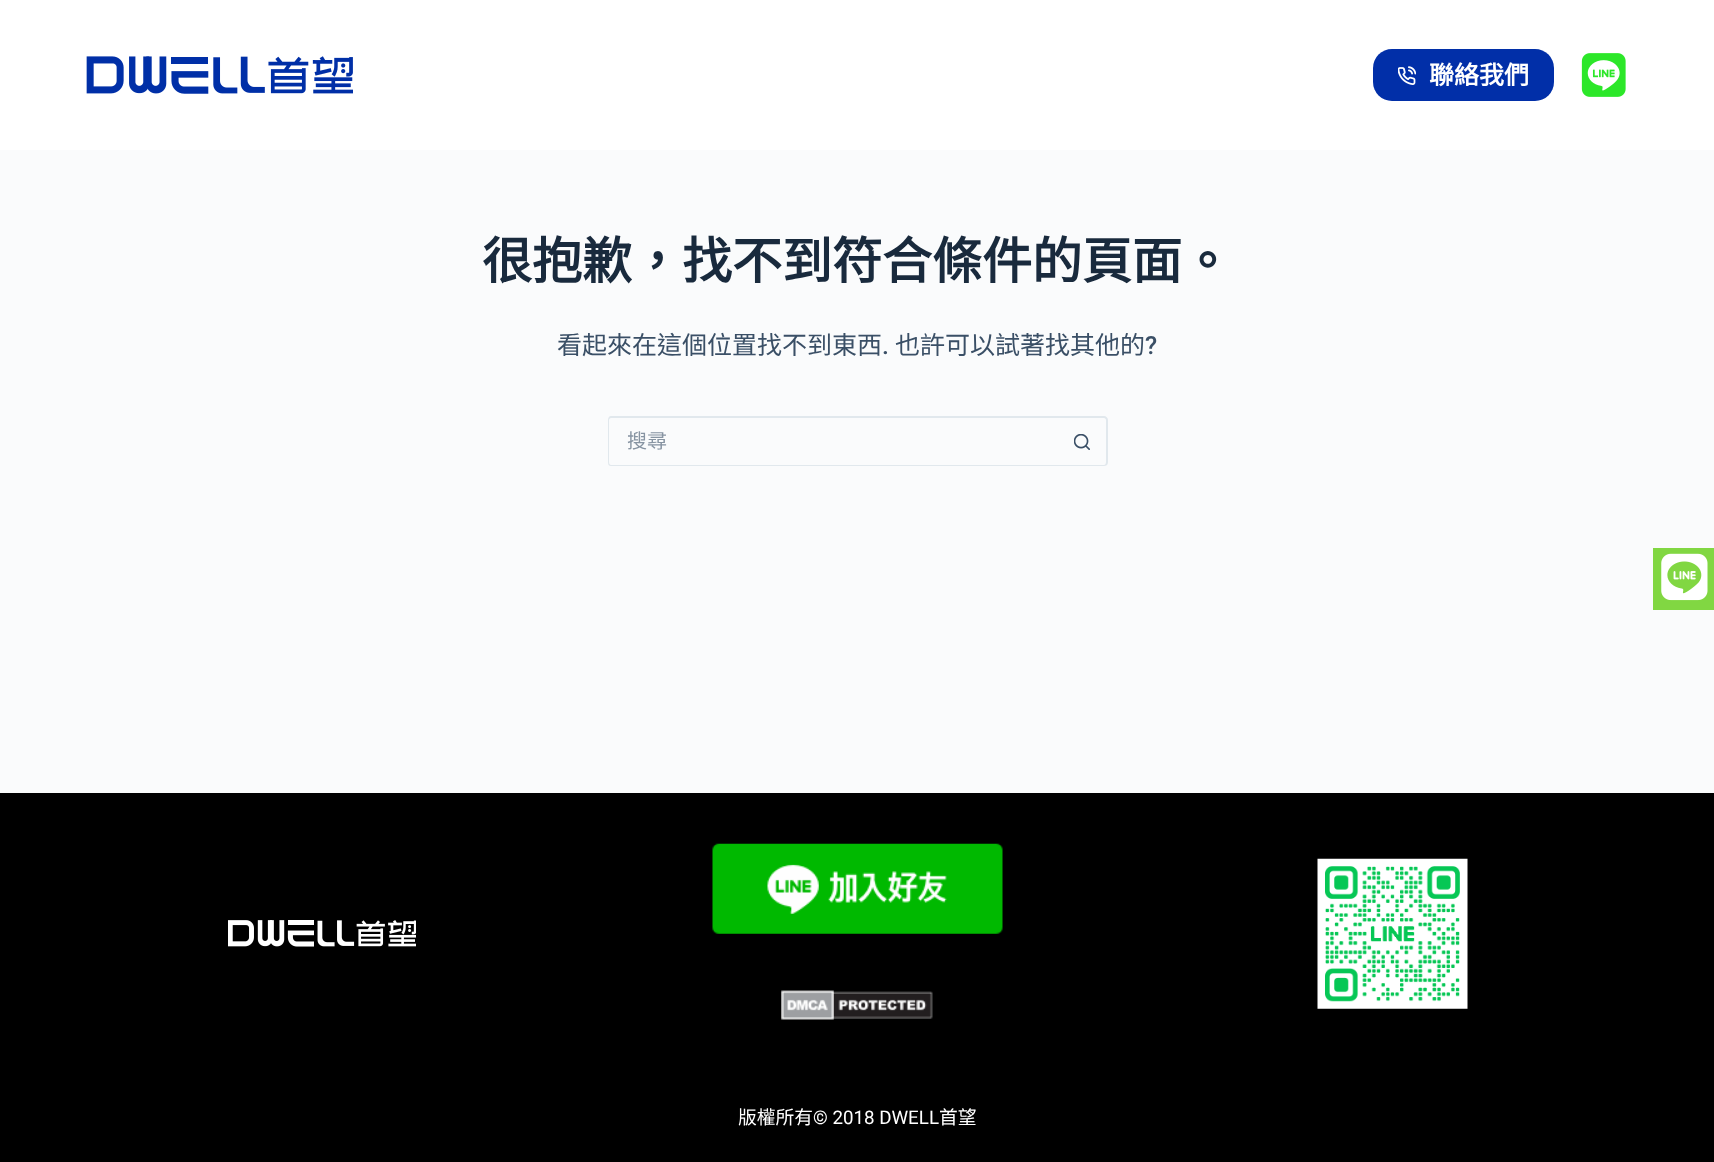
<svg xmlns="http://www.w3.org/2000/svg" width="1714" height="1162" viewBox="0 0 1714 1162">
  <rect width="100%" height="100%" fill="rgb(250,251,252)"/>
  <rect x="0" y="0" width="1714" height="150" fill="rgb(255,255,255)"/>
  <image x="86" y="56" width="267" height="38" href="pic1.png"/>
  <rect x="1373" y="49" width="181" height="52" rx="19" fill="rgb(1,47,168)"/>
  <image x="1398" y="66" width="18" height="19" href="pic2.png"/>
  <text x="1429" y="84" font-family="Noto Sans CJK TC" font-size="25" font-weight="bold" fill="rgb(255,255,255)">聯絡我們</text>
  <image x="1581" y="53" width="45" height="44" href="pic3.png"/>
  <text x="482" y="279" font-family="Noto Sans CJK TC" font-size="50" font-weight="bold" fill="rgb(25,42,61)">很抱歉，找不到符合條件的頁面。</text>
  <text x="557" y="354" font-family="Noto Sans CJK TC" font-size="25" fill="rgb(58,79,102)">看起來在這個位置找不到東西</text>
  <text x="882" y="354" font-family="Roboto" font-size="25" font-weight="500" fill="rgb(58,79,102)">.</text>
  <text x="895" y="354" font-family="Noto Sans CJK TC" font-size="25" fill="rgb(58,79,102)">也許可以試著找其他的</text>
  <text x="1145" y="354" font-family="Roboto" font-size="25" font-weight="500" fill="rgb(58,79,102)">?</text>
  <path d="M611 416H1058V466H611C609 466 608 465 608 462V420C608 418 609 416 611 416ZM611 418H1058V465H611C610 465 609 464 609 462V420C609 419 610 418 611 418Z" fill="rgb(225,232,237)" fill-rule="evenodd"/>
  <text x="627" y="448" font-family="Noto Sans CJK TC" font-size="20" fill="rgb(135,148,162)">搜尋</text>
  <path d="M1058 416H1104C1106 416 1108 418 1108 420V462C1108 465 1106 466 1104 466H1058ZM1058 418H1104C1105 418 1106 419 1106 420V462C1106 464 1105 465 1104 465H1058Z" fill="rgb(225,232,237)" fill-rule="evenodd"/>
  <image x="1074" y="434" width="16" height="16" href="pic4.png"/>
  <rect x="0" y="793" width="1714" height="369" fill="rgb(0,0,0)"/>
  <image x="228" y="920" width="188" height="27" href="pic5.png"/>
  <image x="712" y="843" width="291" height="91" href="pic6.png"/>
  <image x="781" y="990" width="152" height="30" href="pic7.png"/>
  <image x="1317" y="858" width="151" height="151" href="pic8.png"/>
  <text x="738" y="1124" font-family="Noto Sans CJK TC" font-size="18.75" fill="rgb(255,255,255)">版權所有</text>
  <text x="813" y="1124" font-family="Roboto" font-size="18.75" fill="rgb(255,255,255)">© 2018 DWELL</text>
  <text x="939" y="1124" font-family="Noto Sans CJK TC" font-size="18.75" fill="rgb(255,255,255)">首望</text>
  <rect x="1653" y="548" width="61" height="62" fill="rgb(129,215,66)"/>
  <image x="1661" y="553" width="47" height="48" href="pic9.png"/>
</svg>
